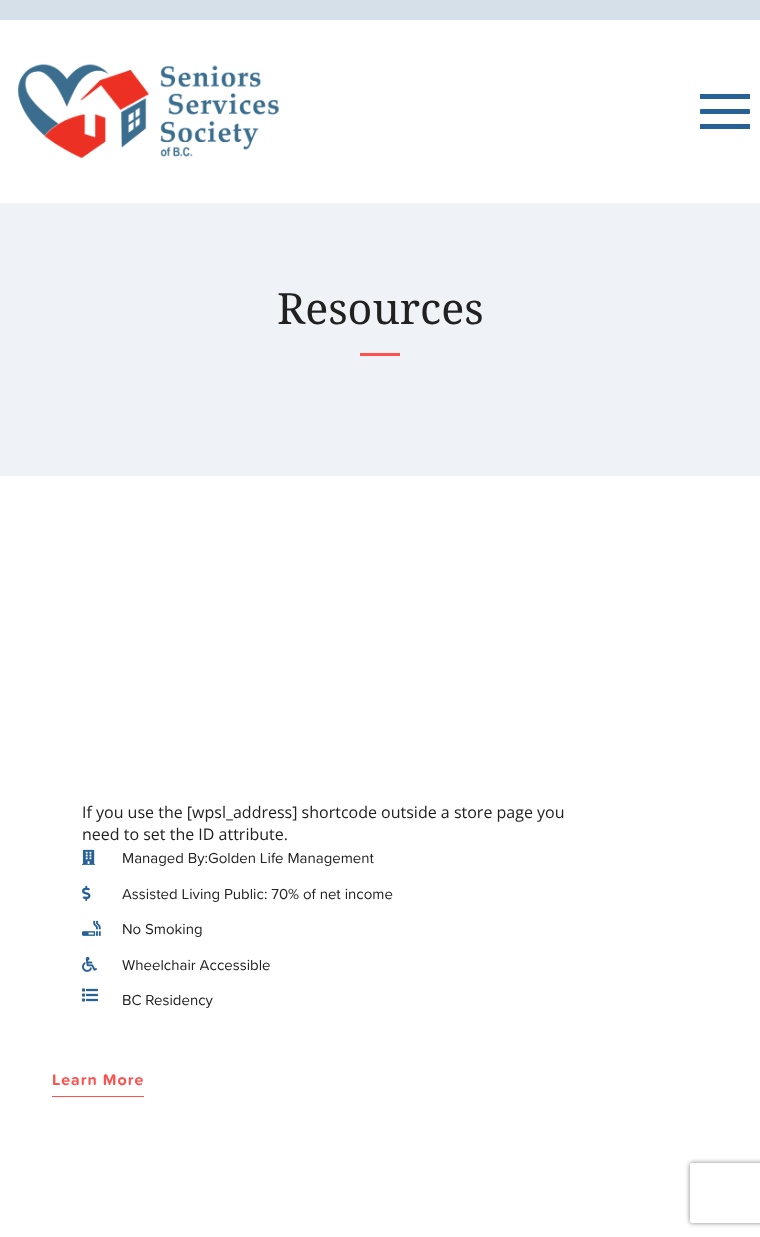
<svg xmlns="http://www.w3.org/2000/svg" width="760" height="1237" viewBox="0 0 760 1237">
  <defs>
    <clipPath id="clip1"><path d="M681 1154H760V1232H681ZM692 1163H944C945 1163 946 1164 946 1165V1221C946 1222 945 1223 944 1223H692C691 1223 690 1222 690 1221V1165C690 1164 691 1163 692 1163Z" clip-rule="evenodd"/></clipPath>
  </defs>
  <rect width="100%" height="100%" fill="rgb(255,255,255)"/>
  <rect x="0" y="0" width="760" height="20" fill="rgb(214,224,232)"/>
  <image x="17" y="63" width="262" height="96" href="pic1.png"/>
  <rect x="700" y="94" width="50" height="5" fill="rgb(39,97,149)"/>
  <rect x="700" y="109" width="50" height="5" rx="1" fill="rgb(39,97,149)"/>
  <rect x="700" y="124" width="50" height="5" fill="rgb(39,97,149)"/>
  <rect x="0" y="203" width="760" height="273" fill="rgb(239,242,246)"/>
  <text x="277" y="324" font-family="Droid Serif" font-size="43" fill="rgb(33,33,33)">Resources</text>
  <rect x="360" y="353" width="40" height="3" fill="rgb(254,80,77)"/>
  <g font-family="Open Sans" font-size="16" fill="rgb(33,33,33)">
    <text>
      <tspan x="82" y="818">If you use the [wpsl_address] shortcode outside a store page you</tspan>
      <tspan x="82" y="840">need to set the ID attribute.</tspan>
    </text>
  </g>
  <image x="82" y="849" width="14" height="16" href="pic2.png"/>
  <text x="122" y="863" font-family="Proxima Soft" font-size="15" fill="rgb(33,33,33)">Managed By:Golden Life Management</text>
  <image x="82" y="885" width="9" height="16" href="pic3.png"/>
  <text x="122" y="899" font-family="Proxima Soft" font-size="15" fill="rgb(33,33,33)">Assisted Living Public: 70% of net income</text>
  <image x="82" y="920" width="19" height="16" href="pic4.png"/>
  <text x="122" y="934" font-family="Proxima Soft" font-size="15" fill="rgb(33,33,33)">No Smoking</text>
  <image x="82" y="956" width="15" height="16" href="pic5.png"/>
  <text x="122" y="970" font-family="Proxima Soft" font-size="15" fill="rgb(33,33,33)">Wheelchair Accessible</text>
  <image x="82" y="988" width="16" height="14" href="pic6.png"/>
  <text x="122" y="1005" font-family="Proxima Soft" font-size="15" fill="rgb(33,33,33)">BC Residency</text>
  <rect x="52" y="1096" width="92" height="1" fill="rgb(254,80,77)"/>
  <text x="52" y="1085" font-family="Proxima Soft" font-size="16" font-weight="bold" letter-spacing="1" fill="rgb(254,80,77)">Learn More</text>
  <g clip-path="url(#clip1)">
    <rect x="690" y="1163" width="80" height="60" rx="2" fill="rgb(128,128,128)" filter="blur(2.5px)"/>
  </g>
</svg>
